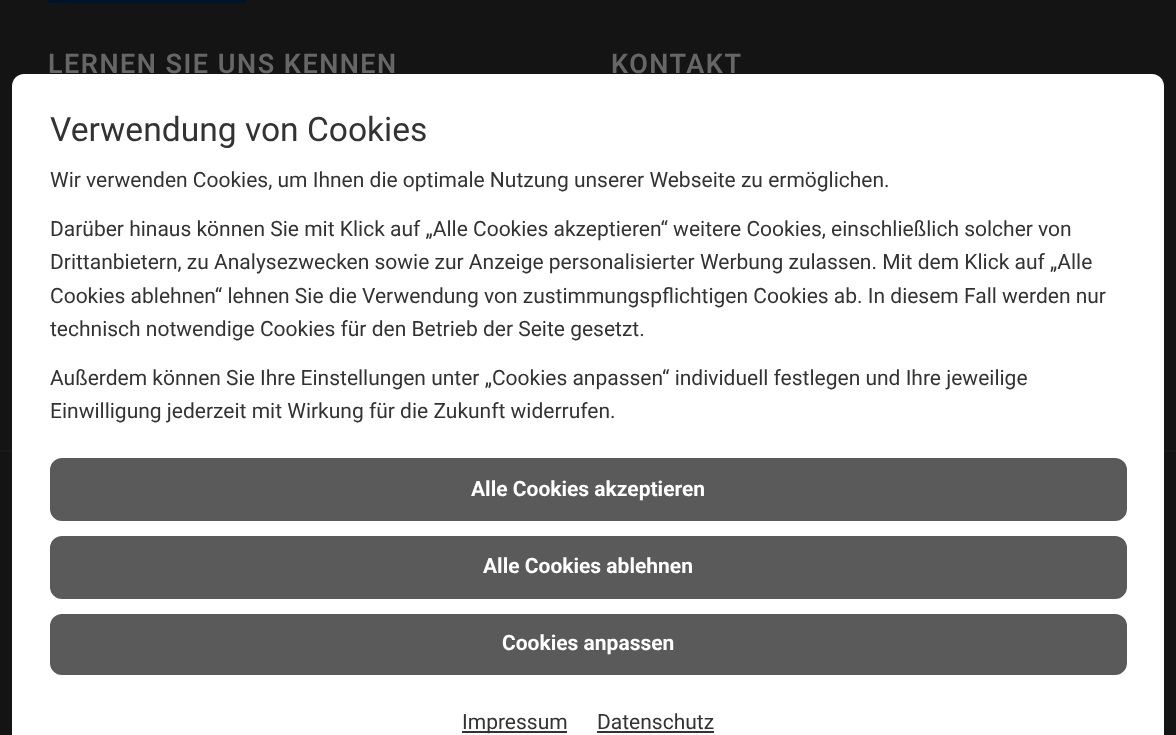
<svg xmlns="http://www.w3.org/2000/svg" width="1176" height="735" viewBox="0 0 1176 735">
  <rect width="100%" height="100%" fill="rgb(20,20,20)"/>
  <rect x="48" y="-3" width="198" height="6" rx="3" fill="rgb(0,20,38)"/>
  <g font-family="Roboto" font-size="27" font-weight="600" letter-spacing="1.5" fill="rgb(102,102,102)">
    <text x="48" y="73">LERNEN SIE UNS KENNEN</text>
    <text x="611" y="73">KONTAKT</text>
  </g>
  <rect x="0" y="450" width="1176" height="2" fill="rgb(26,26,26)"/>
  <path d="M24 74H1152C1158.5 74 1164 79.5 1164 86V735H12V86C12 79.5 17.5 74 24 74Z" fill="rgb(255,255,255)"/>
  <text x="50" y="141" font-family="Roboto" font-size="33.6" fill="rgb(51,51,51)">Verwendung von Cookies</text>
  <g font-family="Roboto" font-size="21" fill="rgb(51,51,51)">
    <text x="50" y="187">Wir verwenden Cookies, um Ihnen die optimale Nutzung unserer Webseite zu ermöglichen.</text>
    <text>
      <tspan x="50" y="236">Darüber hinaus können Sie mit Klick auf „Alle Cookies akzeptieren“ weitere Cookies, einschließlich solcher von</tspan>
      <tspan x="50" y="269">Drittanbietern, zu Analysezwecken sowie zur Anzeige personalisierter Werbung zulassen. Mit dem Klick auf „Alle</tspan>
      <tspan x="50" y="303">Cookies ablehnen“ lehnen Sie die Verwendung von zustimmungspflichtigen Cookies ab. In diesem Fall werden nur</tspan>
      <tspan x="50" y="336">technisch notwendige Cookies für den Betrieb der Seite gesetzt.</tspan>
    </text>
    <text>
      <tspan x="50" y="385">Außerdem können Sie Ihre Einstellungen unter „Cookies anpassen“ individuell festlegen und Ihre jeweilige</tspan>
      <tspan x="50" y="418">Einwilligung jederzeit mit Wirkung für die Zukunft widerrufen.</tspan>
    </text>
  </g>
  <rect x="51" y="459" width="1075" height="61" rx="11" fill="rgb(90,90,90)" stroke="rgb(90,90,90)" stroke-width="2"/>
  <text x="471" y="496" font-family="Roboto" font-size="21" font-weight="bold" fill="rgb(255,255,255)">Alle Cookies akzeptieren</text>
  <rect x="51" y="537" width="1075" height="61" rx="11" fill="rgb(90,90,90)" stroke="rgb(90,90,90)" stroke-width="2"/>
  <text x="483" y="573" font-family="Roboto" font-size="21" font-weight="bold" fill="rgb(255,255,255)">Alle Cookies ablehnen</text>
  <rect x="51" y="615" width="1075" height="59" rx="11" fill="rgb(90,90,90)" stroke="rgb(90,90,90)" stroke-width="2"/>
  <text x="502" y="650" font-family="Roboto" font-size="21" font-weight="bold" fill="rgb(255,255,255)">Cookies anpassen</text>
  <rect x="462" y="731" width="105" height="2" fill="rgb(51,51,51)"/>
  <g font-family="Roboto" font-size="21" fill="rgb(51,51,51)">
    <text x="462" y="729">Impressum</text>
    <text x="597" y="729">Datenschutz</text>
  </g>
  <rect x="597" y="731" width="117" height="2" fill="rgb(51,51,51)"/>
</svg>
